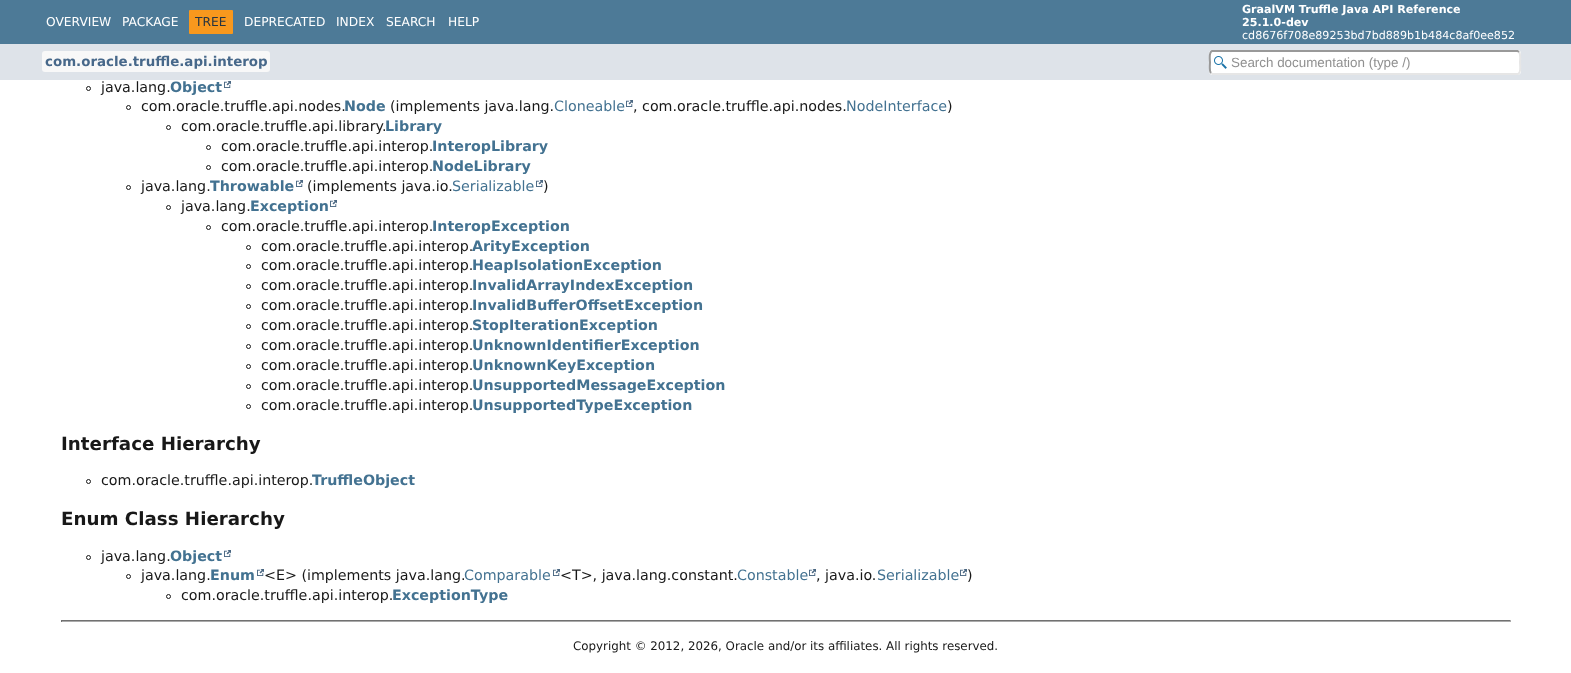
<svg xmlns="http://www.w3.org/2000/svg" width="1571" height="673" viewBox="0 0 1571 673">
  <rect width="100%" height="100%" fill="rgb(255,255,255)"/>
  <rect x="0" y="0" width="1571" height="44" fill="rgb(77,122,151)"/>
  <g font-family="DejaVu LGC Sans" font-size="12.25" fill="rgb(255,255,255)">
    <text x="46" y="26">OVERVIEW</text>
    <text x="122" y="26">PACKAGE</text>
  </g>
  <rect x="189" y="10" width="44" height="24" rx="1" fill="rgb(248,152,29)"/>
  <text x="195" y="26" font-family="DejaVu LGC Sans" font-size="12.25" fill="rgb(37,52,65)">TREE</text>
  <g font-family="DejaVu LGC Sans" font-size="12.25" fill="rgb(255,255,255)">
    <text x="244" y="26">DEPRECATED</text>
    <text x="336" y="26">INDEX</text>
    <text x="386" y="26">SEARCH</text>
    <text x="448" y="26">HELP</text>
  </g>
  <g font-family="DejaVu LGC Sans" font-size="11.1" font-weight="bold" fill="rgb(255,255,255)">
    <text>
      <tspan x="1242" y="13">GraalVM Truffle Java API Reference</tspan>
      <tspan x="1242" y="26">25.1.0-dev</tspan>
    </text>
  </g>
  <text x="1242" y="39" font-family="DejaVu LGC Sans" font-size="11.1" fill="rgb(255,255,255)">cd8676f708e89253bd7bd889b1b484c8af0ee852</text>
  <rect x="0" y="44" width="1571" height="36" fill="rgb(222,227,233)"/>
  <rect x="42" y="51" width="228" height="21" rx="3" fill="rgb(248,248,248)"/>
  <text x="45" y="66" font-family="DejaVu LGC Sans" font-size="13.4" font-weight="bold" fill="rgb(71,104,138)">com.oracle.truffle.api.interop</text>
  <rect x="1209" y="50" width="312" height="25" rx="4" fill="rgb(255,255,255)"/>
  <image x="1214" y="56" width="13" height="13" href="pic1.png"/>
  <path d="M1519 52C1521 54 1520 60 1520 62.5C1520 65 1521.5 72.5 1518 74H1212.5L1211 73" fill="none" stroke="rgb(230,230,230)" stroke-width="2"/>
  <path d="M1211 73C1209 71 1210 65 1210 62.5C1210 60 1208.5 52.5 1212 51H1517.5L1519 52" fill="none" stroke="rgb(153,153,153)" stroke-width="2"/>
  <text x="1231" y="67" font-family="Liberation Sans" font-size="13.4" fill="rgb(144,144,144)">Search documentation (type /)</text>
  <circle cx="88.5" cy="88.5" r="2" fill="none" stroke="rgb(24,24,24)"/>
  <text x="101" y="92" font-family="DejaVu LGC Sans" font-size="14.25" fill="rgb(24,24,24)">java.lang.</text>
  <text x="170" y="92" font-family="DejaVu LGC Sans" font-size="14.25" font-weight="bold" fill="rgb(67,114,145)">Object</text>
  <image x="224" y="81" width="7" height="7" href="pic2.png"/>
  <circle cx="128.5" cy="107.5" r="2" fill="none" stroke="rgb(24,24,24)"/>
  <text x="141" y="111" font-family="DejaVu LGC Sans" font-size="14.25" fill="rgb(24,24,24)">com.oracle.truffle.api.nodes.</text>
  <text x="344" y="111" font-family="DejaVu LGC Sans" font-size="14.25" font-weight="bold" fill="rgb(67,114,145)">Node</text>
  <text x="390" y="111" font-family="DejaVu LGC Sans" font-size="14.25" fill="rgb(24,24,24)">(implements java.lang.</text>
  <text x="554" y="111" font-family="DejaVu LGC Sans" font-size="14.25" fill="rgb(67,114,145)">Cloneable</text>
  <image x="626" y="100" width="7" height="7" href="pic2.png"/>
  <text x="633" y="111" font-family="DejaVu LGC Sans" font-size="14.25" fill="rgb(24,24,24)">, com.oracle.truffle.api.nodes.</text>
  <text x="846" y="111" font-family="DejaVu LGC Sans" font-size="14.25" fill="rgb(67,114,145)">NodeInterface</text>
  <text x="947" y="111" font-family="DejaVu LGC Sans" font-size="14.25" fill="rgb(24,24,24)">)</text>
  <circle cx="168.5" cy="127.5" r="2" fill="none" stroke="rgb(24,24,24)"/>
  <text x="181" y="131" font-family="DejaVu LGC Sans" font-size="14.25" fill="rgb(24,24,24)">com.oracle.truffle.api.library.</text>
  <text x="385" y="131" font-family="DejaVu LGC Sans" font-size="14.25" font-weight="bold" fill="rgb(67,114,145)">Library</text>
  <circle cx="208.5" cy="147.5" r="2" fill="none" stroke="rgb(24,24,24)"/>
  <text x="221" y="151" font-family="DejaVu LGC Sans" font-size="14.25" fill="rgb(24,24,24)">com.oracle.truffle.api.interop.</text>
  <text x="432" y="151" font-family="DejaVu LGC Sans" font-size="14.25" font-weight="bold" fill="rgb(67,114,145)">InteropLibrary</text>
  <circle cx="208.5" cy="167.5" r="2" fill="none" stroke="rgb(24,24,24)"/>
  <text x="221" y="171" font-family="DejaVu LGC Sans" font-size="14.25" fill="rgb(24,24,24)">com.oracle.truffle.api.interop.</text>
  <text x="432" y="171" font-family="DejaVu LGC Sans" font-size="14.25" font-weight="bold" fill="rgb(67,114,145)">NodeLibrary</text>
  <circle cx="128.5" cy="187.5" r="2" fill="none" stroke="rgb(24,24,24)"/>
  <text x="141" y="191" font-family="DejaVu LGC Sans" font-size="14.25" fill="rgb(24,24,24)">java.lang.</text>
  <text x="210" y="191" font-family="DejaVu LGC Sans" font-size="14.25" font-weight="bold" fill="rgb(67,114,145)">Throwable</text>
  <image x="296" y="180" width="7" height="7" href="pic2.png"/>
  <text x="307" y="191" font-family="DejaVu LGC Sans" font-size="14.25" fill="rgb(24,24,24)">(implements java.io.</text>
  <text x="452" y="191" font-family="DejaVu LGC Sans" font-size="14.25" fill="rgb(67,114,145)">Serializable</text>
  <image x="536" y="180" width="7" height="7" href="pic2.png"/>
  <text x="543" y="191" font-family="DejaVu LGC Sans" font-size="14.25" fill="rgb(24,24,24)">)</text>
  <circle cx="168.5" cy="207.5" r="2" fill="none" stroke="rgb(24,24,24)"/>
  <text x="181" y="211" font-family="DejaVu LGC Sans" font-size="14.25" fill="rgb(24,24,24)">java.lang.</text>
  <text x="250" y="211" font-family="DejaVu LGC Sans" font-size="14.25" font-weight="bold" fill="rgb(67,114,145)">Exception</text>
  <image x="330" y="200" width="7" height="7" href="pic2.png"/>
  <circle cx="208.5" cy="227.5" r="2" fill="none" stroke="rgb(24,24,24)"/>
  <text x="221" y="231" font-family="DejaVu LGC Sans" font-size="14.25" fill="rgb(24,24,24)">com.oracle.truffle.api.interop.</text>
  <text x="432" y="231" font-family="DejaVu LGC Sans" font-size="14.25" font-weight="bold" fill="rgb(67,114,145)">InteropException</text>
  <circle cx="248.5" cy="247.5" r="2" fill="none" stroke="rgb(24,24,24)"/>
  <text x="261" y="251" font-family="DejaVu LGC Sans" font-size="14.25" fill="rgb(24,24,24)">com.oracle.truffle.api.interop.</text>
  <text x="472" y="251" font-family="DejaVu LGC Sans" font-size="14.25" font-weight="bold" fill="rgb(67,114,145)">ArityException</text>
  <circle cx="248.5" cy="266.5" r="2" fill="none" stroke="rgb(24,24,24)"/>
  <text x="261" y="270" font-family="DejaVu LGC Sans" font-size="14.25" fill="rgb(24,24,24)">com.oracle.truffle.api.interop.</text>
  <text x="472" y="270" font-family="DejaVu LGC Sans" font-size="14.25" font-weight="bold" fill="rgb(67,114,145)">HeapIsolationException</text>
  <circle cx="248.5" cy="286.5" r="2" fill="none" stroke="rgb(24,24,24)"/>
  <text x="261" y="290" font-family="DejaVu LGC Sans" font-size="14.25" fill="rgb(24,24,24)">com.oracle.truffle.api.interop.</text>
  <text x="472" y="290" font-family="DejaVu LGC Sans" font-size="14.25" font-weight="bold" fill="rgb(67,114,145)">InvalidArrayIndexException</text>
  <circle cx="248.5" cy="306.5" r="2" fill="none" stroke="rgb(24,24,24)"/>
  <text x="261" y="310" font-family="DejaVu LGC Sans" font-size="14.25" fill="rgb(24,24,24)">com.oracle.truffle.api.interop.</text>
  <text x="472" y="310" font-family="DejaVu LGC Sans" font-size="14.25" font-weight="bold" fill="rgb(67,114,145)">InvalidBufferOffsetException</text>
  <circle cx="248.5" cy="326.5" r="2" fill="none" stroke="rgb(24,24,24)"/>
  <text x="261" y="330" font-family="DejaVu LGC Sans" font-size="14.25" fill="rgb(24,24,24)">com.oracle.truffle.api.interop.</text>
  <text x="472" y="330" font-family="DejaVu LGC Sans" font-size="14.25" font-weight="bold" fill="rgb(67,114,145)">StopIterationException</text>
  <circle cx="248.5" cy="346.5" r="2" fill="none" stroke="rgb(24,24,24)"/>
  <text x="261" y="350" font-family="DejaVu LGC Sans" font-size="14.25" fill="rgb(24,24,24)">com.oracle.truffle.api.interop.</text>
  <text x="472" y="350" font-family="DejaVu LGC Sans" font-size="14.25" font-weight="bold" fill="rgb(67,114,145)">UnknownIdentifierException</text>
  <circle cx="248.5" cy="366.5" r="2" fill="none" stroke="rgb(24,24,24)"/>
  <text x="261" y="370" font-family="DejaVu LGC Sans" font-size="14.25" fill="rgb(24,24,24)">com.oracle.truffle.api.interop.</text>
  <text x="472" y="370" font-family="DejaVu LGC Sans" font-size="14.25" font-weight="bold" fill="rgb(67,114,145)">UnknownKeyException</text>
  <circle cx="248.5" cy="386.5" r="2" fill="none" stroke="rgb(24,24,24)"/>
  <text x="261" y="390" font-family="DejaVu LGC Sans" font-size="14.25" fill="rgb(24,24,24)">com.oracle.truffle.api.interop.</text>
  <text x="472" y="390" font-family="DejaVu LGC Sans" font-size="14.25" font-weight="bold" fill="rgb(67,114,145)">UnsupportedMessageException</text>
  <circle cx="248.5" cy="406.5" r="2" fill="none" stroke="rgb(24,24,24)"/>
  <text x="261" y="410" font-family="DejaVu LGC Sans" font-size="14.25" fill="rgb(24,24,24)">com.oracle.truffle.api.interop.</text>
  <text x="472" y="410" font-family="DejaVu LGC Sans" font-size="14.25" font-weight="bold" fill="rgb(67,114,145)">UnsupportedTypeException</text>
  <text x="61" y="450" font-family="DejaVu LGC Sans" font-size="18.25" font-weight="bold" fill="rgb(24,24,24)">Interface Hierarchy</text>
  <circle cx="88.5" cy="481.5" r="2" fill="none" stroke="rgb(24,24,24)"/>
  <text x="101" y="485" font-family="DejaVu LGC Sans" font-size="14.25" fill="rgb(24,24,24)">com.oracle.truffle.api.interop.</text>
  <text x="312" y="485" font-family="DejaVu LGC Sans" font-size="14.25" font-weight="bold" fill="rgb(67,114,145)">TruffleObject</text>
  <text x="61" y="525" font-family="DejaVu LGC Sans" font-size="18.25" font-weight="bold" fill="rgb(24,24,24)">Enum Class Hierarchy</text>
  <circle cx="88.5" cy="557.5" r="2" fill="none" stroke="rgb(24,24,24)"/>
  <text x="101" y="561" font-family="DejaVu LGC Sans" font-size="14.25" fill="rgb(24,24,24)">java.lang.</text>
  <text x="170" y="561" font-family="DejaVu LGC Sans" font-size="14.25" font-weight="bold" fill="rgb(67,114,145)">Object</text>
  <image x="224" y="550" width="7" height="7" href="pic2.png"/>
  <circle cx="128.5" cy="576.5" r="2" fill="none" stroke="rgb(24,24,24)"/>
  <text x="141" y="580" font-family="DejaVu LGC Sans" font-size="14.25" fill="rgb(24,24,24)">java.lang.</text>
  <text x="210" y="580" font-family="DejaVu LGC Sans" font-size="14.25" font-weight="bold" fill="rgb(67,114,145)">Enum</text>
  <image x="257" y="569" width="7" height="7" href="pic2.png"/>
  <text x="264" y="580" font-family="DejaVu LGC Sans" font-size="14.25" fill="rgb(24,24,24)">&lt;E&gt; (implements java.lang.</text>
  <text x="464" y="580" font-family="DejaVu LGC Sans" font-size="14.25" fill="rgb(67,114,145)">Comparable</text>
  <image x="553" y="569" width="7" height="7" href="pic2.png"/>
  <text x="560" y="580" font-family="DejaVu LGC Sans" font-size="14.25" fill="rgb(24,24,24)">&lt;T&gt;, java.lang.constant.</text>
  <text x="737" y="580" font-family="DejaVu LGC Sans" font-size="14.25" fill="rgb(67,114,145)">Constable</text>
  <image x="809" y="569" width="7" height="7" href="pic2.png"/>
  <text x="816" y="580" font-family="DejaVu LGC Sans" font-size="14.25" fill="rgb(24,24,24)">, java.io.</text>
  <text x="877" y="580" font-family="DejaVu LGC Sans" font-size="14.25" fill="rgb(67,114,145)">Serializable</text>
  <image x="960" y="569" width="7" height="7" href="pic2.png"/>
  <text x="967" y="580" font-family="DejaVu LGC Sans" font-size="14.25" fill="rgb(24,24,24)">)</text>
  <circle cx="168.5" cy="596.5" r="2" fill="none" stroke="rgb(24,24,24)"/>
  <text x="181" y="600" font-family="DejaVu LGC Sans" font-size="14.25" fill="rgb(24,24,24)">com.oracle.truffle.api.interop.</text>
  <text x="392" y="600" font-family="DejaVu LGC Sans" font-size="14.25" font-weight="bold" fill="rgb(67,114,145)">ExceptionType</text>
  <rect x="61" y="620" width="1450" height="1" fill="rgb(113,113,113)"/>
  <rect x="1510" y="620" width="1" height="2" fill="rgb(170,170,170)"/>
  <rect x="61" y="621" width="1450" height="1" fill="rgb(170,170,170)"/>
  <rect x="61" y="620" width="1" height="2" fill="rgb(113,113,113)"/>
  <text x="573" y="650" font-family="DejaVu LGC Sans" font-size="11.85" fill="rgb(24,24,24)">Copyright © 2012, 2026, Oracle and/or its affiliates. All rights reserved.</text>
</svg>
